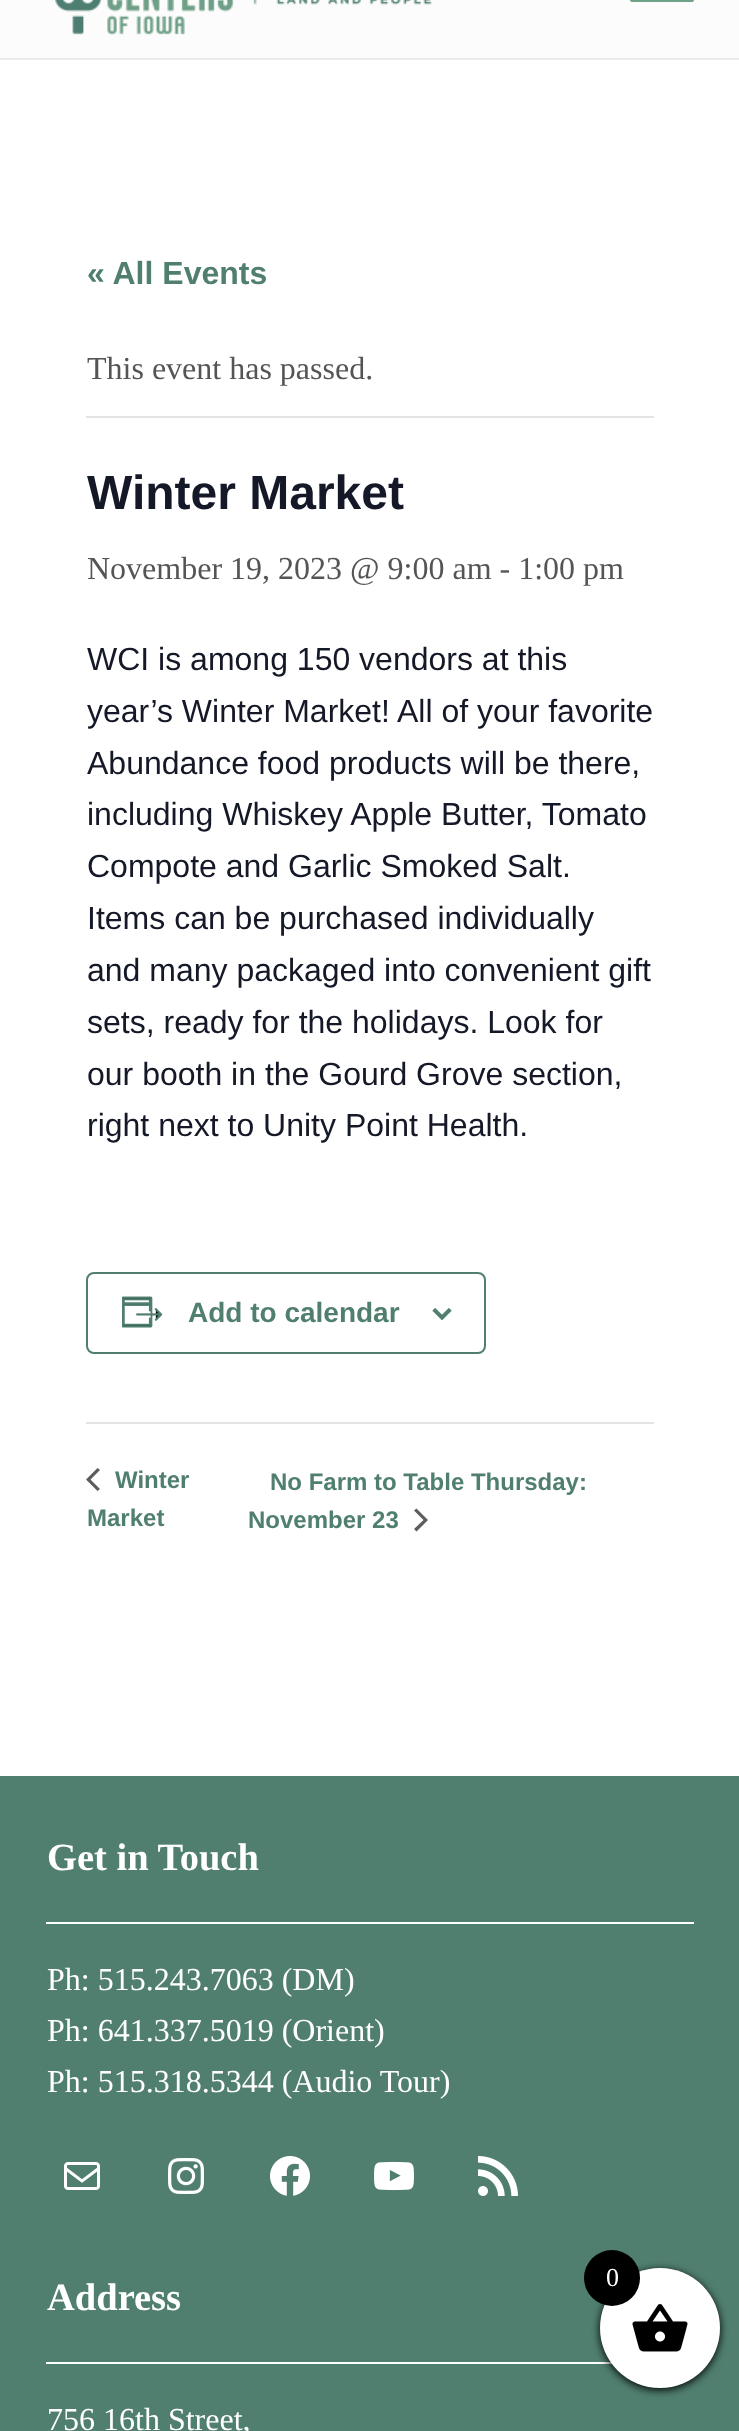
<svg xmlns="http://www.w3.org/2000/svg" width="739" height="2431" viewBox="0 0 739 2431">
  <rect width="100%" height="100%" fill="rgb(255,255,255)"/>
  <rect x="0" y="0" width="739" height="58" fill="rgb(252,252,252)"/>
  <rect x="0" y="58" width="739" height="2" fill="rgb(235,235,235)"/>
  <image x="55" y="0" width="377" height="35" href="pic1.png"/>
  <rect x="630" y="-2" width="64" height="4" rx="2" fill="rgb(111,162,135)"/>
  <text x="87" y="284" font-family="Liberation Sans" font-size="32" font-weight="bold" fill="rgb(80,127,112)">« All Events</text>
  <rect x="86" y="416" width="568" height="2" fill="rgb(228,228,228)"/>
  <text x="87" y="379" font-family="Liberation Serif" font-size="32" fill="rgb(85,85,85)">This event has passed.</text>
  <text x="87" y="509" font-family="Liberation Sans" font-size="48" font-weight="bold" fill="rgb(20,24,39)">Winter Market</text>
  <text x="87" y="579" font-family="Liberation Serif" font-size="32" fill="rgb(85,85,85)">November 19, 2023 @ 9:00 am - 1:00 pm</text>
  <g font-family="Liberation Sans" font-size="32" fill="rgb(20,24,39)">
    <text>
      <tspan x="87" y="670">WCI is among 150 vendors at this</tspan>
      <tspan x="87" y="722">year’s Winter Market! All of your favorite</tspan>
      <tspan x="87" y="774">Abundance food products will be there,</tspan>
      <tspan x="87" y="825">including Whiskey Apple Butter, Tomato</tspan>
      <tspan x="87" y="877">Compote and Garlic Smoked Salt.</tspan>
      <tspan x="87" y="929">Items can be purchased individually</tspan>
      <tspan x="87" y="981">and many packaged into convenient gift</tspan>
      <tspan x="87" y="1033">sets, ready for the holidays. Look for</tspan>
      <tspan x="87" y="1085">our booth in the Gourd Grove section,</tspan>
      <tspan x="87" y="1136">right next to Unity Point Health.</tspan>
    </text>
  </g>
  <rect x="87" y="1273" width="398" height="80" rx="7" fill="none" stroke="rgb(80,127,112)" stroke-width="2"/>
  <image x="122" y="1296" width="41" height="32" href="pic2.png"/>
  <text x="188" y="1322" font-family="Liberation Sans" font-size="28" font-weight="bold" fill="rgb(80,127,112)">Add to calendar</text>
  <image x="432" y="1308" width="20" height="12" href="pic3.png"/>
  <rect x="86" y="1422" width="568" height="2" fill="rgb(228,228,228)"/>
  <path d="M100 1489L97.5 1491L86 1479.5L97.5 1468L100 1470L90.5 1479.5Z" fill="rgb(93,93,93)"/>
  <g font-family="Liberation Sans" font-size="24" font-weight="bold" fill="rgb(80,127,112)">
    <text x="115" y="1488">Winter</text>
    <text x="87" y="1526">Market</text>
    <text x="270" y="1490">No Farm to Table Thursday:</text>
    <text x="248" y="1528">November 23</text>
  </g>
  <path d="M414 1510.5L416.5 1508.5L428 1520L416.5 1531.5L414 1529L423.5 1520Z" fill="rgb(93,93,93)"/>
  <rect x="0" y="1776" width="739" height="655" fill="rgb(80,127,112)"/>
  <text x="47" y="1870" font-family="Liberation Serif" font-size="38.5" font-weight="bold" fill="rgb(255,255,255)">Get in Touch</text>
  <rect x="46" y="1922" width="648" height="2" fill="rgb(255,255,255)"/>
  <g font-family="Liberation Serif" font-size="32" fill="rgb(255,255,255)">
    <text>
      <tspan x="47" y="1990">Ph: 515.243.7063 (DM)</tspan>
      <tspan x="47" y="2041">Ph: 641.337.5019 (Orient)</tspan>
      <tspan x="47" y="2092">Ph: 515.318.5344 (Audio Tour)</tspan>
    </text>
  </g>
  <image x="64" y="2162" width="36" height="28" href="pic4.png"/>
  <image x="168" y="2158" width="36" height="36" href="pic5.png"/>
  <image x="270" y="2156" width="40" height="40" href="pic6.png"/>
  <image x="374" y="2161" width="40" height="30" href="pic7.png"/>
  <image x="478" y="2156" width="40" height="40" href="pic8.png"/>
  <text x="47" y="2310" font-family="Liberation Serif" font-size="38.5" font-weight="bold" fill="rgb(255,255,255)">Address</text>
  <rect x="46" y="2362" width="566" height="2" fill="rgb(255,255,255)"/>
  <text x="47" y="2430" font-family="Liberation Serif" font-size="32" fill="rgb(255,255,255)">756 16th Street,</text>
  <rect x="600" y="2270" width="120" height="120" rx="60" fill="rgb(0,0,0)" filter="blur(4px)"/>
  <circle cx="660" cy="2328" r="60" fill="rgb(255,255,255)"/>
  <image x="632" y="2304" width="56" height="48" href="pic9.png"/>
  <circle cx="612" cy="2278" r="28" fill="rgb(0,0,0)"/>
  <text x="606" y="2286" font-family="Liberation Serif" font-size="26" fill="rgb(255,255,255)">0</text>
</svg>
